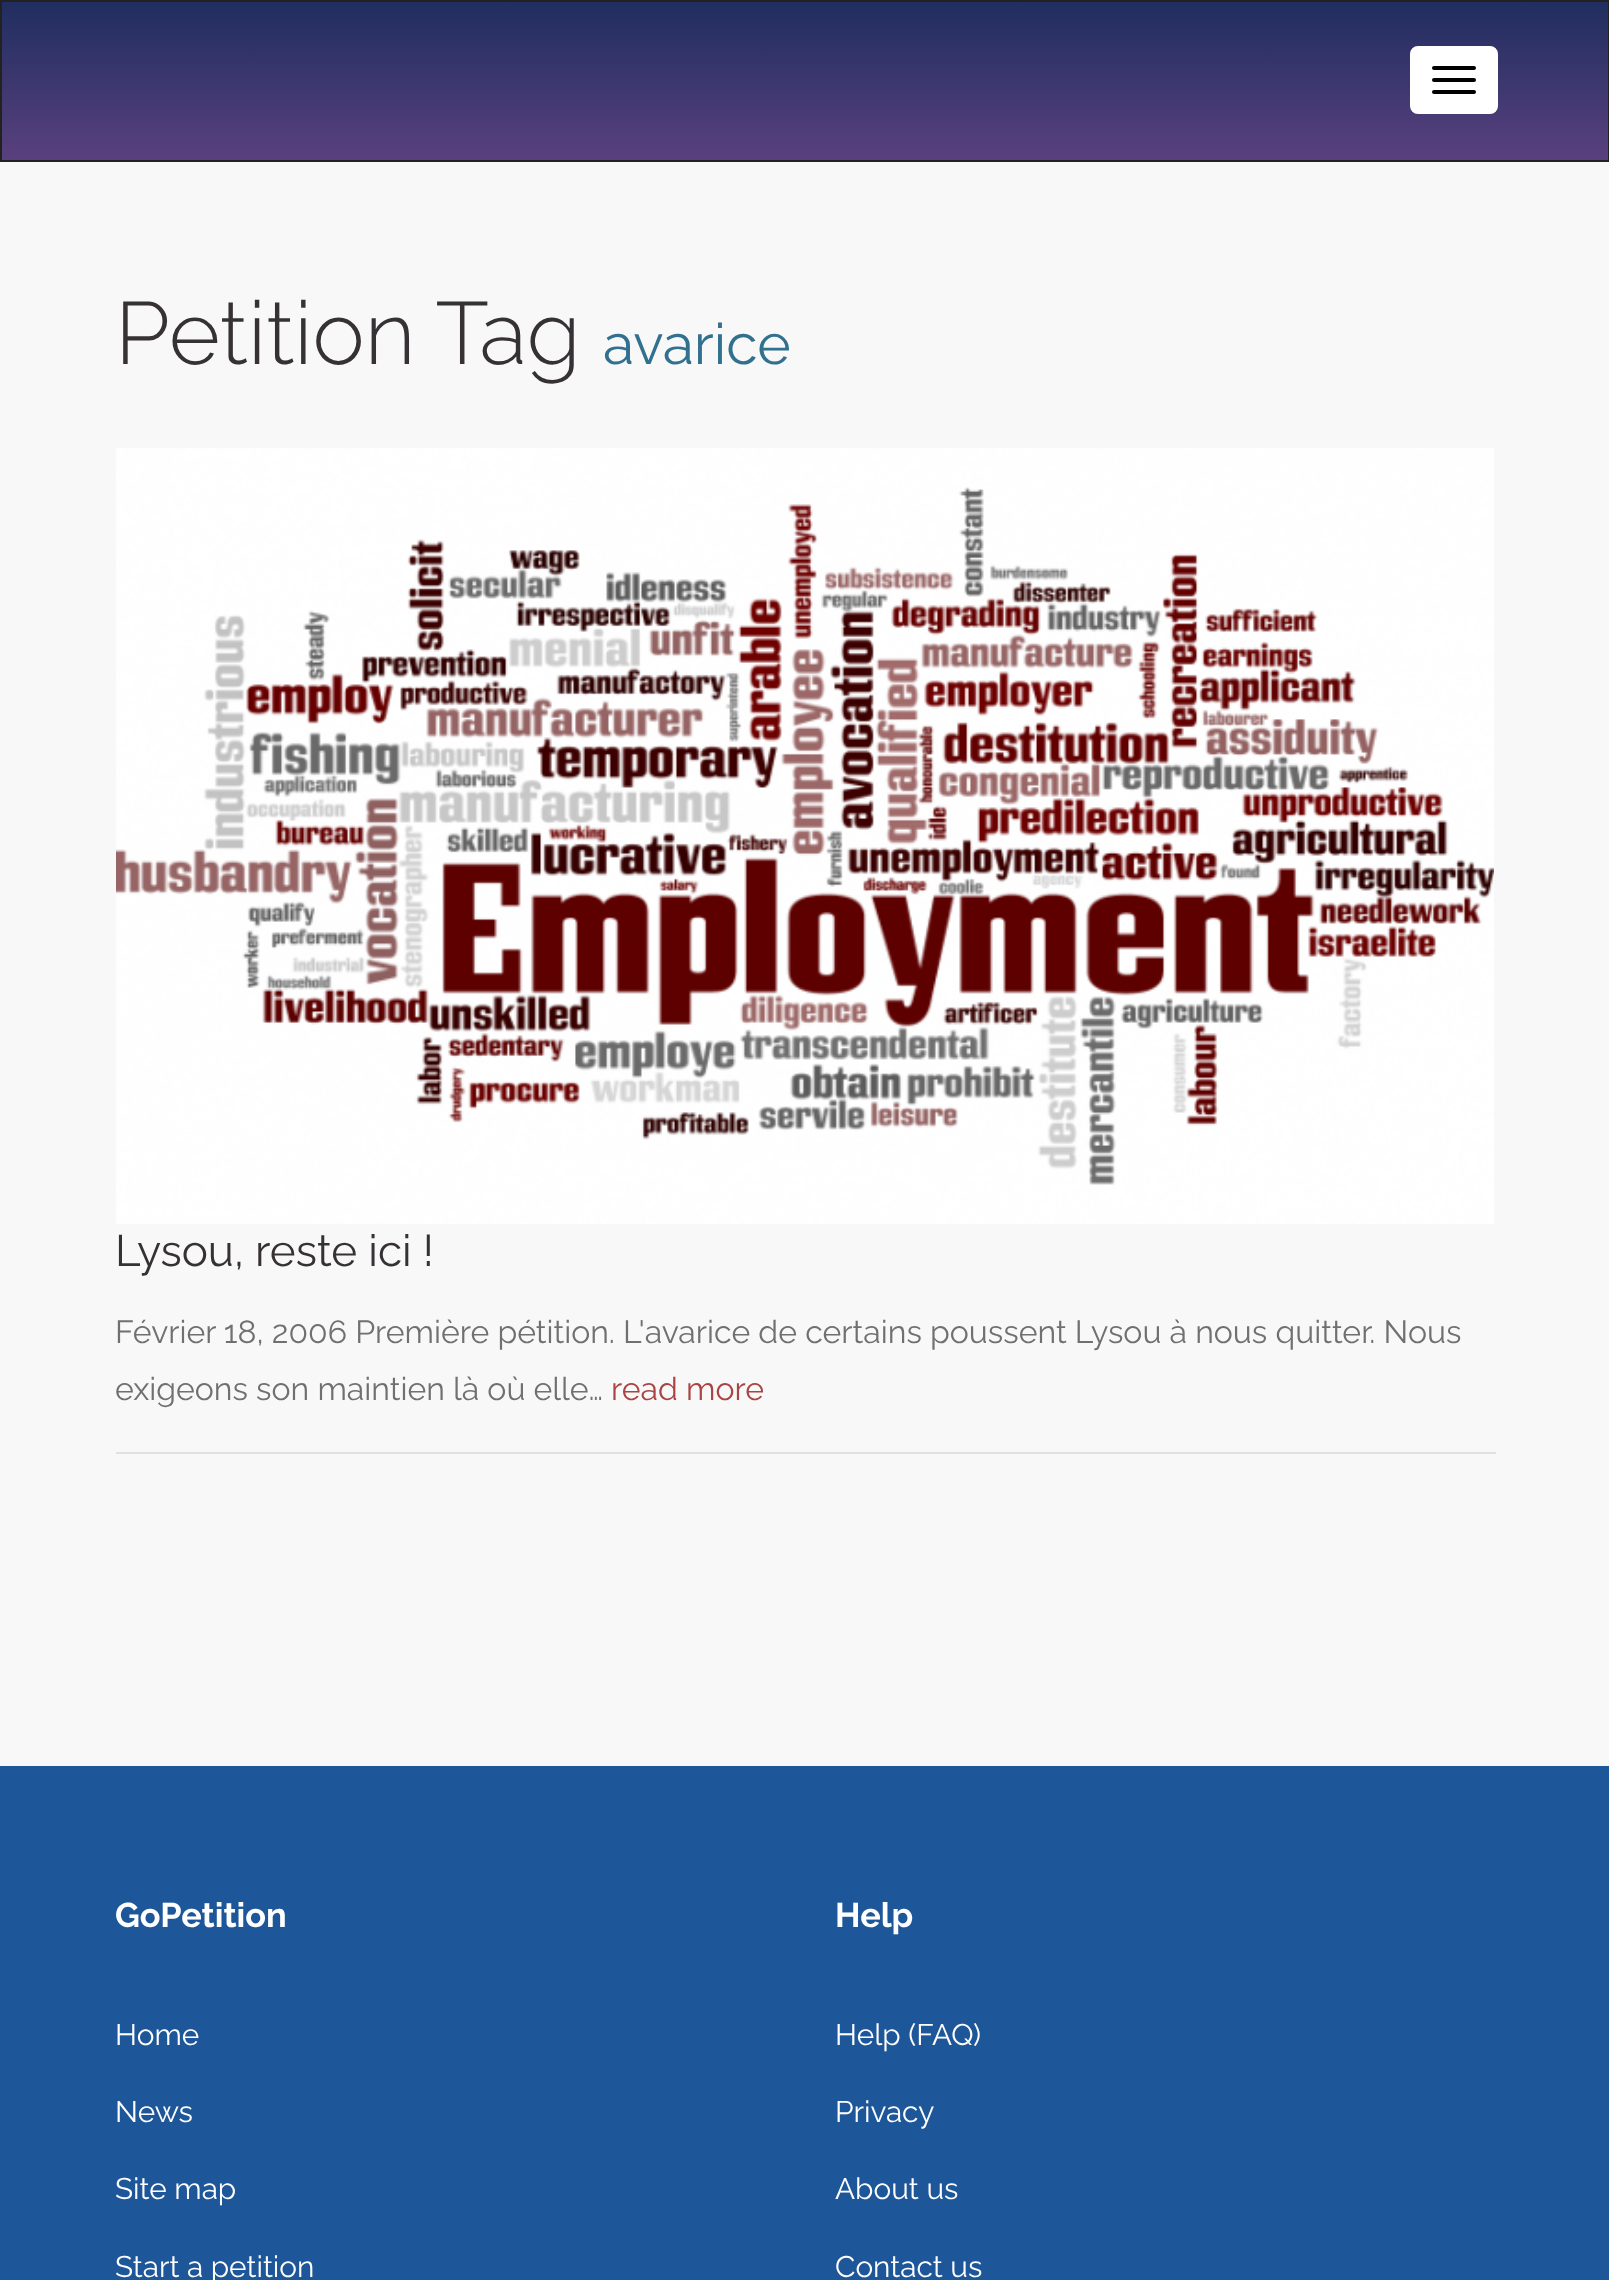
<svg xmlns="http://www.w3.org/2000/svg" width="1609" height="2280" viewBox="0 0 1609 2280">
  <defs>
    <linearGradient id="g1" gradientUnits="userSpaceOnUse" x1="805" y1="2" x2="805" y2="160"><stop offset="0" stop-color="rgb(32,46,95)"/><stop offset="1" stop-color="rgb(89,64,126)"/></linearGradient>
  </defs>
  <rect width="100%" height="100%" fill="rgb(248,248,248)"/>
  <rect x="2" y="2" width="1606" height="158" fill="url(#g1)"/>
  <rect x="1" y="1" width="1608" height="160" fill="none" stroke="rgb(34,34,34)" stroke-width="2"/>
  <rect x="1411" y="47" width="86" height="66" rx="7" fill="rgb(255,255,255)" stroke="rgb(255,255,255)" stroke-width="2"/>
  <rect x="1432" y="66" width="44" height="4" rx="2" fill="rgb(0,0,0)"/>
  <rect x="1432" y="78" width="44" height="4" rx="2" fill="rgb(0,0,0)"/>
  <rect x="1432" y="90" width="44" height="4" rx="2" fill="rgb(0,0,0)"/>
  <text x="115" y="364" font-family="Raleway" font-size="88" font-weight="300" fill="rgb(54,49,53)">Petition Tag</text>
  <text x="603" y="364" font-family="Raleway" font-size="57" fill="rgb(49,112,143)">avarice</text>
  <rect x="116" y="1452" width="1380" height="2" fill="rgb(224,224,224)"/>
  <image x="116" y="448" width="1378" height="776" href="pic1.png"/>
  <text x="115" y="1266" font-family="Raleway" font-size="44" fill="rgb(54,49,53)">Lysou, reste ici !</text>
  <g font-family="Raleway" font-size="32" fill="rgb(112,112,112)">
    <text>
      <tspan x="115" y="1343">Février 18, 2006 Première pétition. L'avarice de certains poussent Lysou à nous quitter. Nous</tspan>
      <tspan x="115" y="1400">exigeons son maintien là où elle…</tspan>
    </text>
  </g>
  <text x="611" y="1400" font-family="Raleway" font-size="32" fill="rgb(169,68,66)">read more</text>
  <rect x="0" y="1766" width="1609" height="514" fill="rgb(30,87,153)"/>
  <text x="115" y="1927" font-family="Raleway" font-size="34.25" font-weight="bold" fill="rgb(255,255,255)">GoPetition</text>
  <g font-family="Raleway" font-size="29.75" fill="rgb(255,255,255)">
    <text x="115" y="2045">Home</text>
    <text x="115" y="2122">News</text>
    <text x="115" y="2199">Site map</text>
    <text x="115" y="2277">Start a petition</text>
  </g>
  <text x="835" y="1927" font-family="Raleway" font-size="34.25" font-weight="bold" fill="rgb(255,255,255)">Help</text>
  <g font-family="Raleway" font-size="29.75" fill="rgb(255,255,255)">
    <text x="835" y="2045">Help (FAQ)</text>
    <text x="835" y="2122">Privacy</text>
    <text x="835" y="2199">About us</text>
    <text x="835" y="2277">Contact us</text>
  </g>
</svg>
